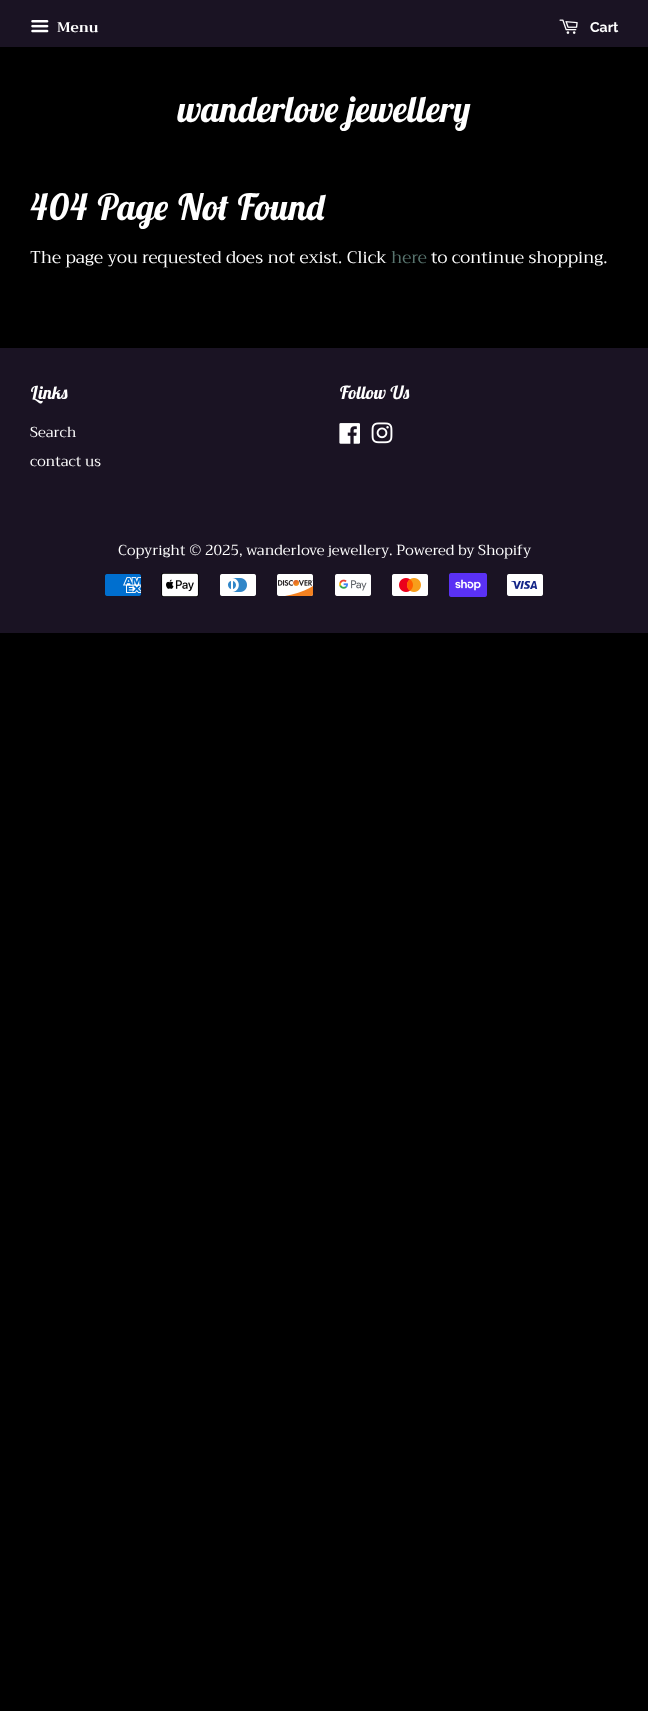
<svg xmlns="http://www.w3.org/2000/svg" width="648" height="1711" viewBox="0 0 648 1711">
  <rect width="100%" height="100%" fill="rgb(0,0,0)"/>
  <rect x="0" y="0" width="648" height="47" fill="rgb(26,19,35)"/>
  <image x="31" y="20" width="18" height="13" href="pic1.png"/>
  <text x="57" y="32" font-family="Trirong" font-size="14" font-weight="bold" fill="rgb(255,255,255)">Menu</text>
  <image x="559" y="19" width="19" height="15" href="pic2.png"/>
  <text x="590" y="32" font-family="Raleway" font-size="14" font-weight="bold" fill="rgb(255,255,255)">Cart</text>
  <g font-family="Lobster Two" font-size="36" font-weight="bold" font-style="italic" fill="rgb(255,255,255)">
    <text x="177" y="122">wanderlove jewellery</text>
    <text x="30" y="220">404 Page Not Found</text>
  </g>
  <text x="30" y="263" font-family="Trirong" font-size="17" fill="rgb(255,255,255)">The page you requested does not exist. Click</text>
  <text x="391" y="263" font-family="Trirong" font-size="17" fill="rgb(89,117,111)">here</text>
  <text x="431" y="263" font-family="Trirong" font-size="17" fill="rgb(255,255,255)">to continue shopping.</text>
  <rect x="0" y="348" width="648" height="285" fill="rgb(26,19,35)"/>
  <text x="30" y="399" font-family="Lobster Two" font-size="18" font-weight="bold" font-style="italic" fill="rgb(255,255,255)">Links</text>
  <g font-family="Trirong" font-size="14.5" fill="rgb(255,255,255)">
    <text x="30" y="437">Search</text>
    <text x="30" y="466">contact us</text>
  </g>
  <text x="339" y="399" font-family="Lobster Two" font-size="18" font-weight="bold" font-style="italic" fill="rgb(255,255,255)">Follow Us</text>
  <image x="339" y="423" width="21" height="21" href="pic3.png"/>
  <image x="371" y="422" width="22" height="22" href="pic4.png"/>
  <g font-family="Trirong" font-size="14.5" fill="rgb(255,255,255)">
    <text x="118" y="555">Copyright © 2025,</text>
    <text x="246" y="555" word-spacing="-1">wanderlove jewellery</text>
    <text x="389" y="555">. Powered by Shopify</text>
  </g>
  <image x="105" y="574" width="36" height="22" href="pic5.png"/>
  <image x="161" y="573" width="38" height="24" href="pic6.png"/>
  <image x="220" y="574" width="36" height="22" href="pic7.png"/>
  <image x="277" y="574" width="36" height="22" href="pic8.png"/>
  <image x="335" y="574" width="36" height="22" href="pic9.png"/>
  <image x="392" y="574" width="36" height="22" href="pic10.png"/>
  <image x="449" y="573" width="38" height="24" href="pic11.png"/>
  <image x="507" y="574" width="36" height="22" href="pic12.png"/>
</svg>
